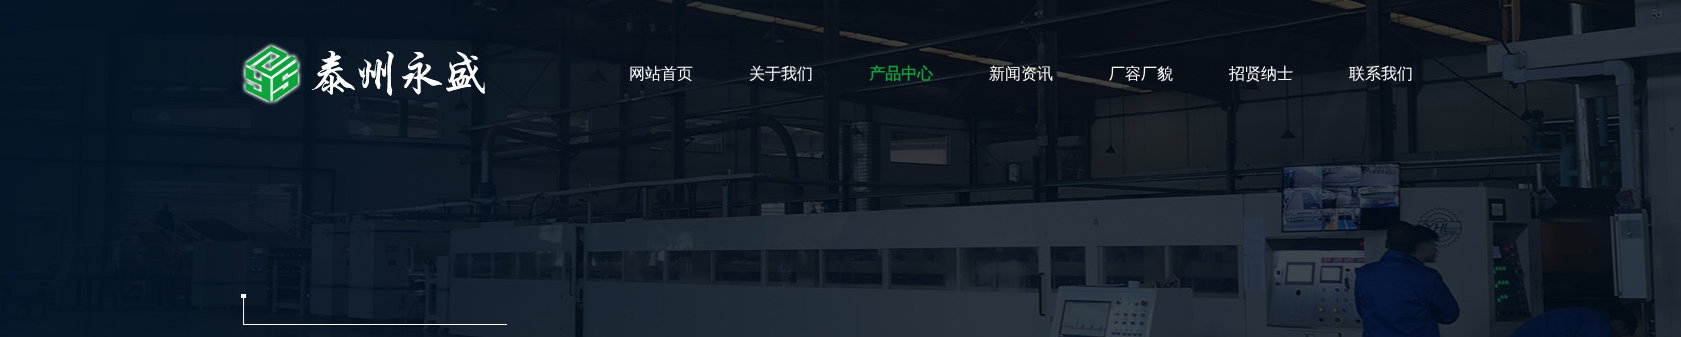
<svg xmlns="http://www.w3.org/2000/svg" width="1681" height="337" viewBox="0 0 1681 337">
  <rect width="100%" height="100%" fill="rgb(255,255,255)"/>
  <image x="0" y="0" width="1681" height="337" href="pic1.png"/>
  <image x="241" y="42" width="244" height="64" href="pic2.png"/>
  <g font-family="WenQuanYi Zen Hei" font-size="16" font-weight="500" fill="rgb(255,255,255)">
    <text x="629" y="79">网站首页</text>
    <text x="749" y="79">关于我们</text>
  </g>
  <text x="869" y="79" font-family="WenQuanYi Zen Hei" font-size="16" font-weight="bold" fill="rgb(11,164,59)">产品中心</text>
  <g font-family="WenQuanYi Zen Hei" font-size="16" font-weight="500" fill="rgb(255,255,255)">
    <text x="989" y="79">新闻资讯</text>
    <text x="1109" y="79">厂容厂貌</text>
    <text x="1229" y="79">招贤纳士</text>
    <text x="1349" y="79">联系我们</text>
  </g>
  <image x="241" y="294" width="266" height="31" href="pic3.png"/>
</svg>
